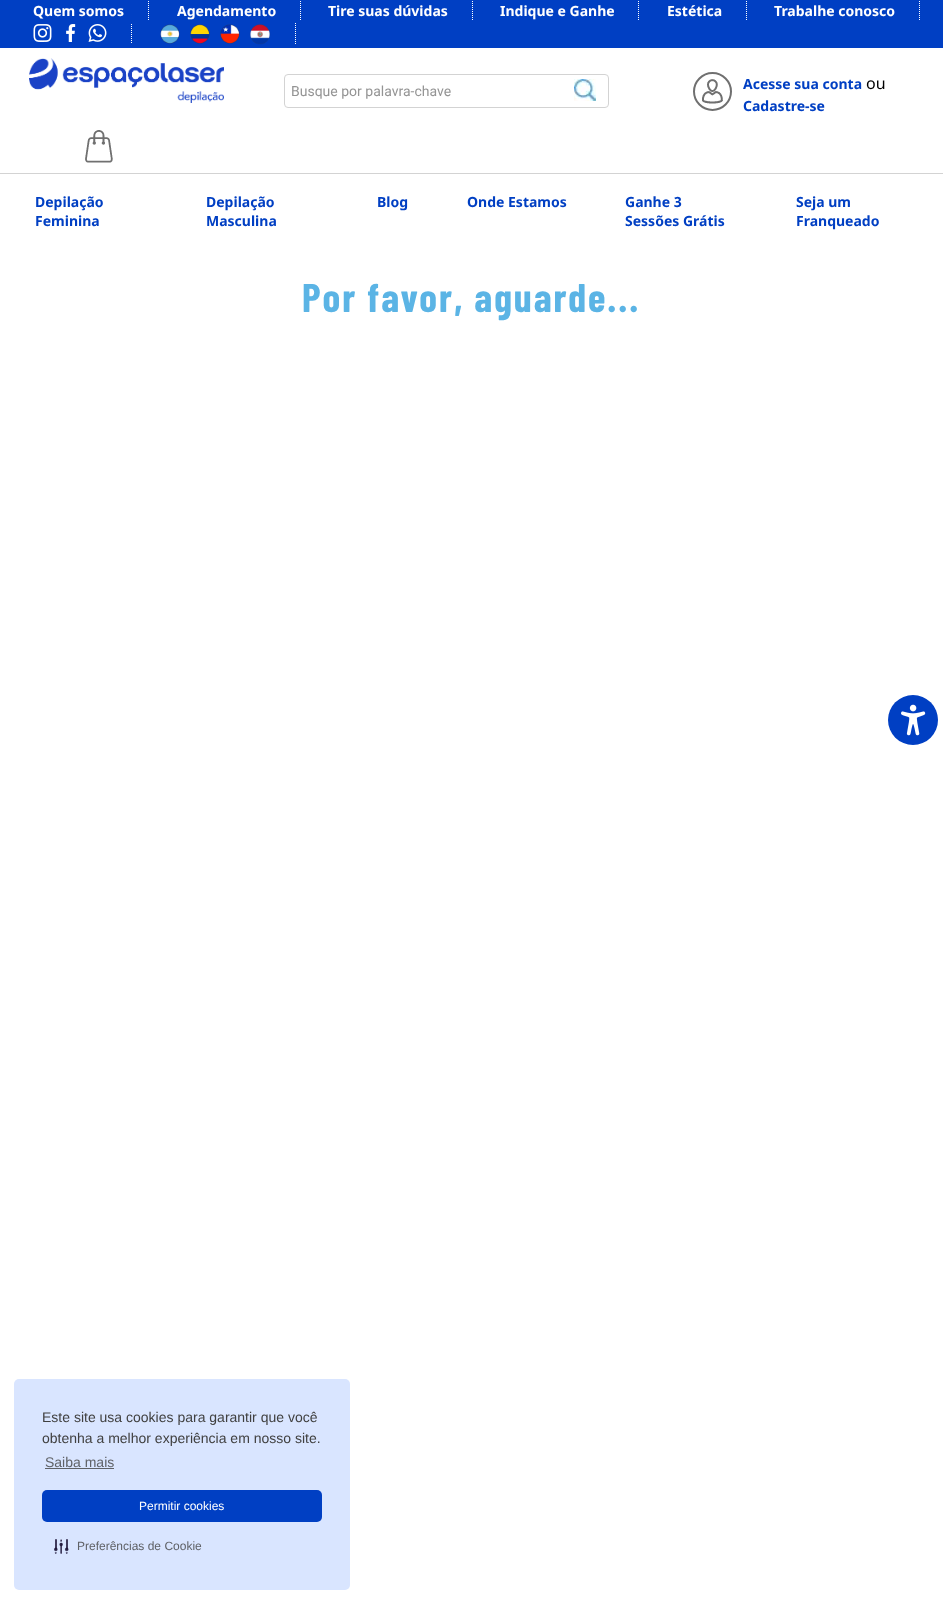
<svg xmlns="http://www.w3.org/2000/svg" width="943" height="1604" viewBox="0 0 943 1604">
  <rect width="100%" height="100%" fill="rgb(255,255,255)"/>
  <rect x="0" y="0" width="943" height="48" fill="rgb(0,63,195)"/>
  <path d="M148.5 1V20" fill="none" stroke="rgb(255,255,255)" stroke-dasharray="1 1"/>
  <text x="33" y="16" font-family="Noto Sans" font-size="14" font-weight="bold" fill="rgb(255,255,255)">Quem somos</text>
  <path d="M300.5 1V20" fill="none" stroke="rgb(255,255,255)" stroke-dasharray="1 1"/>
  <text x="177" y="16" font-family="Noto Sans" font-size="14" font-weight="bold" fill="rgb(255,255,255)">Agendamento</text>
  <path d="M472.5 1V20" fill="none" stroke="rgb(255,255,255)" stroke-dasharray="1 1"/>
  <text x="328" y="16" font-family="Noto Sans" font-size="14" font-weight="bold" fill="rgb(255,255,255)">Tire suas dúvidas</text>
  <path d="M638.5 1V20" fill="none" stroke="rgb(255,255,255)" stroke-dasharray="1 1"/>
  <text x="500" y="16" font-family="Noto Sans" font-size="14" font-weight="bold" fill="rgb(255,255,255)">Indique e Ganhe</text>
  <path d="M746.5 1V20" fill="none" stroke="rgb(255,255,255)" stroke-dasharray="1 1"/>
  <text x="667" y="16" font-family="Noto Sans" font-size="14" font-weight="bold" fill="rgb(255,255,255)">Estética</text>
  <path d="M919.5 1V20" fill="none" stroke="rgb(255,255,255)" stroke-dasharray="1 1"/>
  <text x="774" y="16" font-family="Noto Sans" font-size="14" font-weight="bold" fill="rgb(255,255,255)">Trabalhe conosco</text>
  <path d="M131.5 24V44" fill="none" stroke="rgb(255,255,255)" stroke-dasharray="1 1"/>
  <image x="33" y="24" width="19" height="18" href="pic1.png"/>
  <image x="66" y="24" width="10" height="18" href="pic2.png"/>
  <image x="88" y="24" width="19" height="18" href="pic3.png"/>
  <path d="M295.5 23V45" fill="none" stroke="rgb(255,255,255)" stroke-dasharray="1 1"/>
  <image x="160" y="24" width="20" height="20" href="pic4.png"/>
  <image x="190" y="24" width="20" height="20" href="pic5.png"/>
  <image x="220" y="24" width="20" height="20" href="pic6.png"/>
  <image x="249" y="24" width="22" height="21" href="pic7.png"/>
  <image x="29" y="58" width="195" height="45" href="pic8.png"/>
  <rect x="284.5" y="74.5" width="324" height="33" rx="3.5" fill="none" stroke="rgb(211,211,211)"/>
  <text x="291" y="96" font-family="Roboto" font-size="14" fill="rgb(148,148,148)">Busque por palavra-chave</text>
  <image x="574" y="79" width="22" height="22" href="pic9.png"/>
  <image x="702" y="79" width="21" height="25" href="pic10.png"/>
  <circle cx="712.5" cy="91.5" r="18.5" fill="none" stroke="rgb(112,112,112)" stroke-width="2"/>
  <text x="743" y="89" font-family="Noto Sans" font-size="14" font-weight="bold" fill="rgb(0,63,195)">Acesse sua conta</text>
  <text x="866" y="89" font-family="Noto Sans" font-size="16" fill="rgb(0,0,0)">ou</text>
  <text x="743" y="111" font-family="Noto Sans" font-size="14" font-weight="bold" fill="rgb(0,63,195)">Cadastre-se</text>
  <image x="85" y="130" width="28" height="33" href="pic11.png"/>
  <rect x="0" y="173" width="943" height="1" fill="rgb(211,211,211)"/>
  <g font-family="Noto Sans" font-size="14" font-weight="bold" fill="rgb(0,63,195)">
    <text>
      <tspan x="35" y="207">Depilação</tspan>
      <tspan x="35" y="226">Feminina</tspan>
    </text>
    <text>
      <tspan x="206" y="207">Depilação</tspan>
      <tspan x="206" y="226">Masculina</tspan>
    </text>
    <text x="377" y="207">Blog</text>
    <text x="467" y="207">Onde Estamos</text>
    <text>
      <tspan x="625" y="207">Ganhe 3</tspan>
      <tspan x="625" y="226">Sessões Grátis</tspan>
    </text>
    <text>
      <tspan x="796" y="207">Seja um</tspan>
      <tspan x="796" y="226">Franqueado</tspan>
    </text>
  </g>
  <text x="302" y="312" font-family="Barlow Condensed" font-size="40" font-weight="bold" letter-spacing="2" fill="rgb(91,180,229)">Por favor, aguarde...</text>
  <circle cx="913" cy="720" r="25" fill="rgb(0,63,195)"/>
  <image x="901" y="704" width="25" height="32" href="pic12.png"/>
  <rect x="14" y="1379" width="336" height="211" rx="5" fill="rgb(217,229,255)"/>
  <g font-family="Liberation Sans" font-size="14" fill="rgb(64,64,64)">
    <text>
      <tspan x="42" y="1422">Este site usa cookies para garantir que você</tspan>
      <tspan x="42" y="1443">obtenha a melhor experiência em nosso site.</tspan>
    </text>
  </g>
  <text x="45" y="1467" font-family="Liberation Sans" font-size="14" fill="rgb(95,97,102)">Saiba mais</text>
  <rect x="45" y="1468" width="69" height="1" fill="rgb(95,97,102)"/>
  <rect x="42" y="1490" width="280" height="32" rx="5" fill="rgb(0,63,195)"/>
  <text x="139" y="1510" font-family="Liberation Sans" font-size="12" fill="rgb(255,255,255)">Permitir cookies</text>
  <image x="54" y="1539" width="15" height="15" href="pic13.png"/>
  <text x="77" y="1550" font-family="Liberation Sans" font-size="12" fill="rgb(95,97,102)">Preferências de Cookie</text>
</svg>
